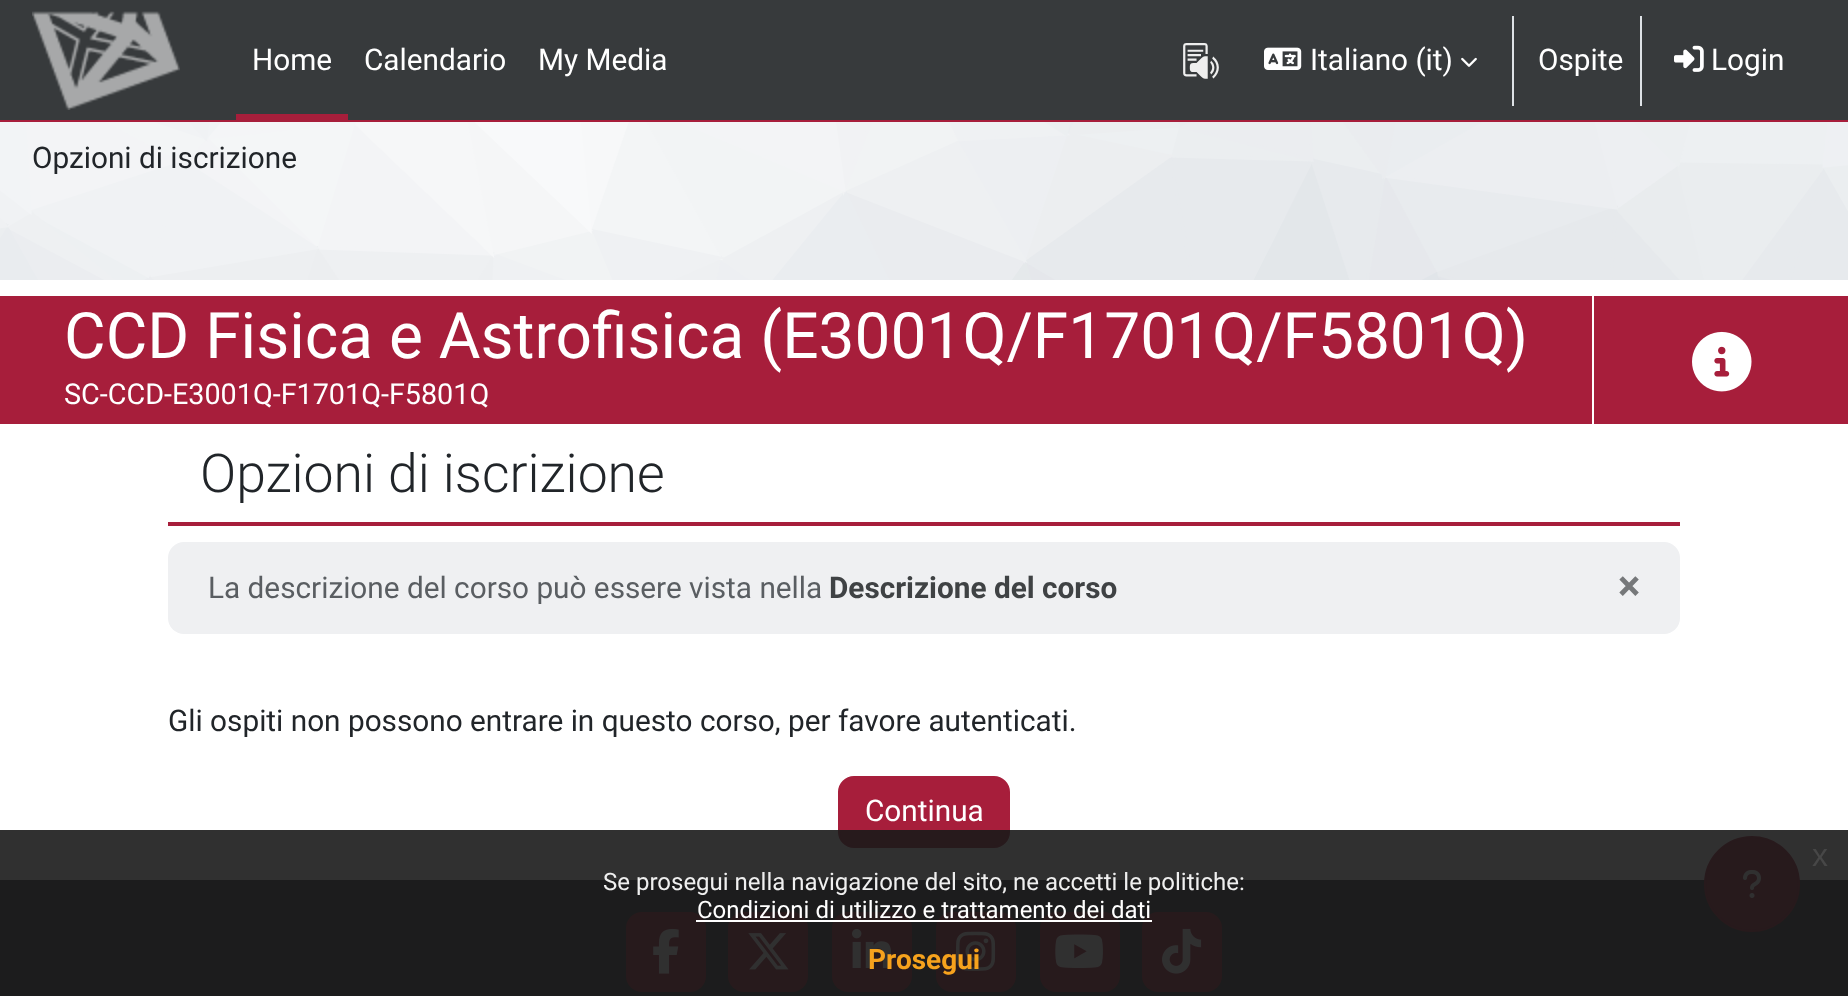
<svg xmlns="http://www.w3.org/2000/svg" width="1848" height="996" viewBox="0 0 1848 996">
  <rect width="100%" height="100%" fill="rgb(255,255,255)"/>
  <rect x="0" y="0" width="1848" height="120" fill="rgb(55,58,60)"/>
  <rect x="0" y="120" width="1848" height="2" fill="rgb(167,30,59)"/>
  <image x="32" y="11" width="148" height="99" href="pic1.png"/>
  <rect x="236" y="114" width="112" height="6" fill="rgb(167,30,59)"/>
  <g font-family="Roboto" font-size="29.75" fill="rgb(255,255,255)">
    <text x="252" y="70">Home</text>
    <text x="364" y="70">Calendario</text>
    <text x="538" y="70">My Media</text>
  </g>
  <image x="1183" y="43" width="36" height="36" href="pic2.png"/>
  <image x="1264" y="47" width="38" height="23" href="pic3.png"/>
  <text x="1310" y="70" font-family="Roboto" font-size="29.75" fill="rgb(255,255,255)">Italiano (it)</text>
  <image x="1461" y="57" width="16" height="10" href="pic4.png"/>
  <rect x="1512" y="16" width="2" height="90" fill="rgb(222,226,230)"/>
  <text x="1538" y="70" font-family="Roboto" font-size="29.75" fill="rgb(255,255,255)">Ospite</text>
  <rect x="1640" y="16" width="2" height="90" fill="rgb(222,226,230)"/>
  <image x="1674" y="45" width="30" height="27" href="pic5.png"/>
  <text x="1711" y="70" font-family="Roboto" font-size="29.75" fill="rgb(255,255,255)">Login</text>
  <image x="0" y="122" width="1848" height="158" href="pic6.png"/>
  <text x="32" y="168" font-family="Roboto" font-size="29.75" fill="rgb(33,37,41)">Opzioni di iscrizione</text>
  <rect x="0" y="296" width="1848" height="128" fill="rgb(167,30,59)"/>
  <text x="64" y="358" font-family="Roboto" font-size="64" fill="rgb(255,255,255)">CCD Fisica e Astrofisica (E3001Q/F1701Q/F5801Q)</text>
  <text x="64" y="404" font-family="Roboto" font-size="28.75" fill="rgb(255,255,255)">SC-CCD-E3001Q-F1701Q-F5801Q</text>
  <rect x="1592" y="296" width="2" height="128" fill="rgb(255,255,255)"/>
  <image x="1692" y="331" width="60" height="61" href="pic7.png"/>
  <rect x="168" y="522" width="1512" height="4" fill="rgb(167,30,59)"/>
  <text x="200" y="492" font-family="Roboto" font-size="53.5" font-weight="300" fill="rgb(33,37,41)">Opzioni di iscrizione</text>
  <rect x="168" y="542" width="1512" height="92" rx="16" fill="rgb(239,240,242)"/>
  <text x="208" y="598" font-family="Roboto" font-size="29.75" fill="rgb(90,94,98)">La descrizione del corso può essere vista nella</text>
  <text x="829" y="598" font-family="Roboto" font-size="29.75" font-weight="bold" fill="rgb(63,66,68)">Descrizione del corso</text>
  <text x="1618" y="600" font-family="Roboto" font-size="42" font-weight="bold" fill="rgb(118,120,122)">×</text>
  <text x="168" y="731" font-family="Roboto" font-size="29.75" fill="rgb(33,37,41)">Gli ospiti non possono entrare in questo corso, per favore autenticati.</text>
  <rect x="839" y="777" width="170" height="70" rx="15" fill="rgb(167,30,59)" stroke="rgb(167,30,59)" stroke-width="2"/>
  <text x="865" y="821" font-family="Roboto" font-size="29.75" fill="rgb(255,255,255)">Continua</text>
  <rect x="0" y="880" width="1848" height="116" fill="rgb(55,58,60)"/>
  <circle cx="1752" cy="884" r="47" fill="rgb(167,30,59)" stroke="rgb(167,30,59)" stroke-width="2"/>
  <image x="1743" y="870" width="18" height="28" href="pic8.png"/>
  <rect x="626" y="912" width="80" height="80" rx="16" fill="rgb(167,30,59)"/>
  <image x="653" y="928" width="26" height="46" href="pic9.png"/>
  <rect x="728" y="912" width="80" height="80" rx="16" fill="rgb(167,30,59)"/>
  <image x="748" y="933" width="41" height="37" href="pic10.png"/>
  <rect x="832" y="912" width="80" height="80" rx="16" fill="rgb(167,30,59)"/>
  <image x="852" y="929" width="40" height="39" href="pic11.png"/>
  <rect x="936" y="912" width="80" height="80" rx="16" fill="rgb(167,30,59)"/>
  <image x="956" y="931" width="40" height="40" href="pic12.png"/>
  <rect x="1040" y="912" width="80" height="80" rx="16" fill="rgb(167,30,59)"/>
  <image x="1055" y="934" width="48" height="34" href="pic13.png"/>
  <rect x="1142" y="912" width="80" height="80" rx="16" fill="rgb(167,30,59)"/>
  <image x="1162" y="928" width="40" height="46" href="pic14.png"/>
  <rect x="0" y="830" width="1848" height="166" fill="rgba(25,25,25,0.9)"/>
  <text x="1812" y="866" font-family="Liberation Sans" font-size="32" fill="rgb(71,71,71)">x</text>
  <text x="603" y="890" font-family="Roboto" font-size="24" fill="rgb(239,239,239)">Se prosegui nella navigazione del sito, ne accetti le politiche:</text>
  <text x="697" y="918" font-family="Roboto" font-size="24" fill="rgb(255,255,255)">Condizioni di utilizzo e trattamento dei dati</text>
  <rect x="696" y="920" width="456" height="2" fill="rgb(255,255,255)"/>
  <text x="868" y="969" font-family="Roboto" font-size="28" font-weight="bold" fill="rgb(246,162,29)">Prosegui</text>
</svg>
